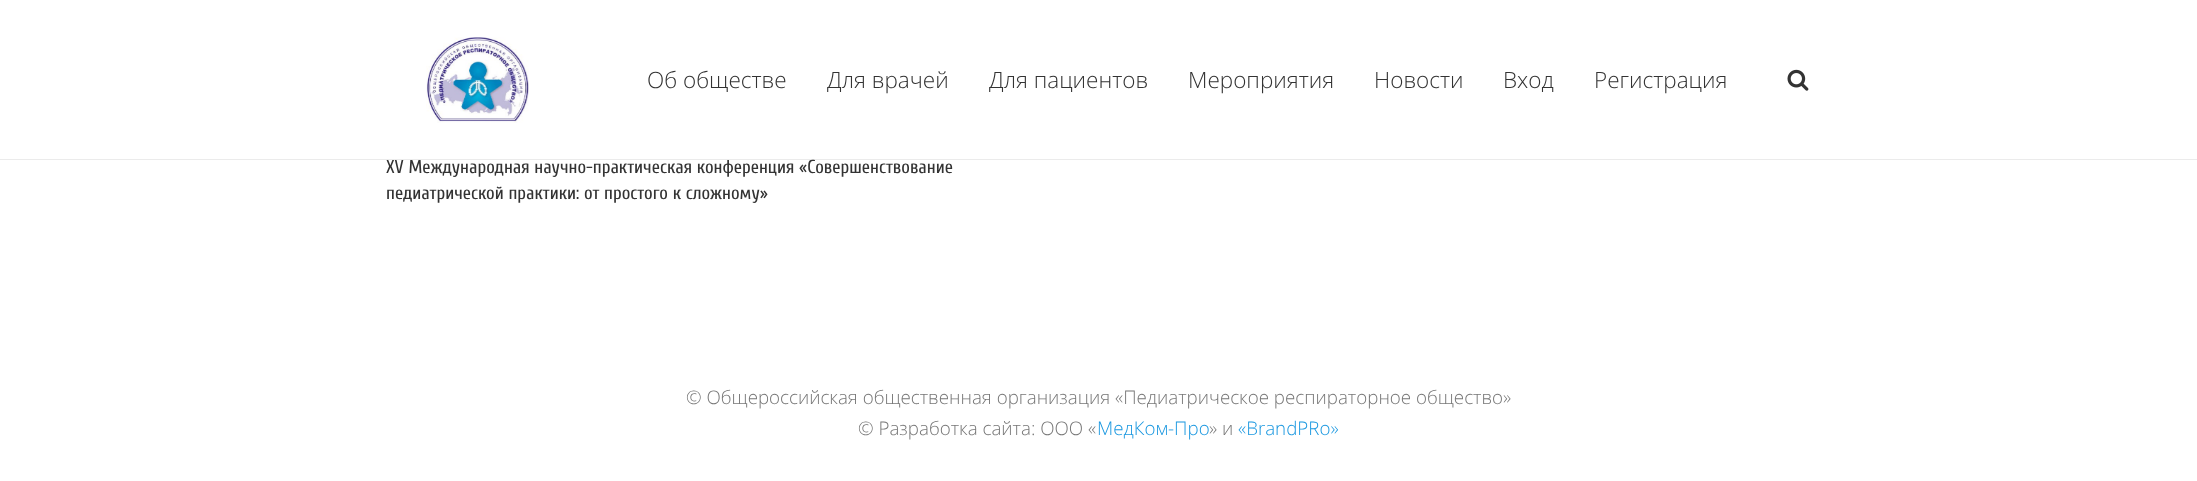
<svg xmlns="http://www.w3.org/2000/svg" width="2197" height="481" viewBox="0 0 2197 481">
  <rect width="100%" height="100%" fill="rgb(255,255,255)"/>
  <path d="M0 159V160H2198V1V159Z" fill="rgba(0,0,0,0.08)"/>
  <image x="426" y="37" width="103" height="86" href="pic1.png"/>
  <g font-family="Open Sans" font-size="22.5" font-weight="300" fill="rgb(51,51,51)">
    <text x="647" y="88">Об обществе</text>
    <text x="827" y="88">Для врачей</text>
    <text x="989" y="88">Для пациентов</text>
    <text x="1188" y="88">Мероприятия</text>
    <text x="1374" y="88">Новости</text>
    <text x="1503" y="88">Вход</text>
    <text x="1594" y="88">Регистрация</text>
  </g>
  <image x="1787" y="69" width="22" height="22" href="pic2.png"/>
  <g font-family="Cuprum" font-size="18.75" fill="rgb(51,51,51)">
    <text>
      <tspan x="386" y="173">XV Международная научно-практическая конференция «Совершенствование</tspan>
      <tspan x="386" y="199">педиатрической практики: от простого к сложному»</tspan>
    </text>
  </g>
  <g font-family="Open Sans" font-size="18.75" font-weight="300" fill="rgb(119,119,119)">
    <text x="686" y="404">© Общероссийская общественная организация «Педиатрическое респираторное общество»</text>
    <text x="858" y="435">© Разработка сайта: ООО «</text>
  </g>
  <text x="1097" y="435" font-family="Open Sans" font-size="18.75" font-weight="300" fill="rgb(27,152,224)">МедКом-Про</text>
  <text x="1209" y="435" font-family="Open Sans" font-size="18.75" font-weight="300" fill="rgb(119,119,119)">» и</text>
  <text x="1238" y="435" font-family="Open Sans" font-size="18.75" font-weight="300" fill="rgb(27,152,224)">«BrandPRo»</text>
</svg>
